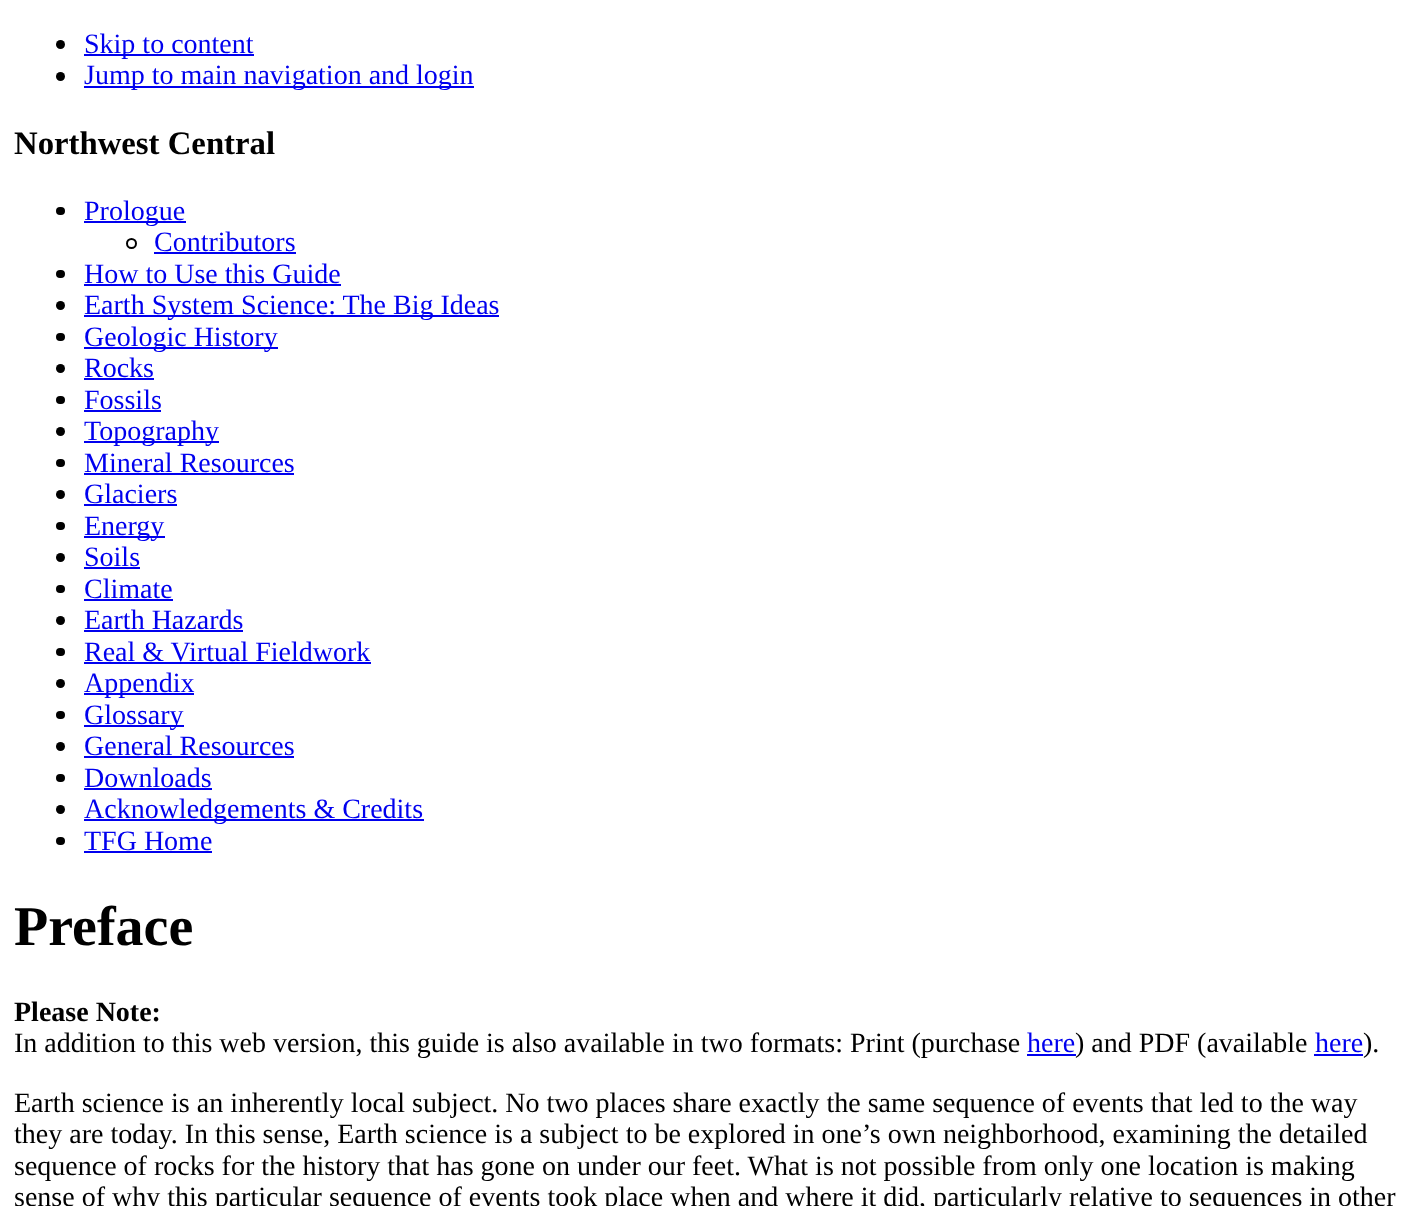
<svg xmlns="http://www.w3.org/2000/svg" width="1424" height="1206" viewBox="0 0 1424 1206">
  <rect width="100%" height="100%" fill="rgb(255,255,255)"/>
  <circle cx="60.5" cy="44.5" r="4.5" fill="rgb(0,0,0)"/>
  <rect x="84" y="54" width="170" height="2" fill="rgb(0,0,238)"/>
  <text x="84" y="53" font-family="Liberation Serif" font-size="28" fill="rgb(0,0,238)">Skip to content</text>
  <circle cx="60.5" cy="76.5" r="4.5" fill="rgb(0,0,0)"/>
  <rect x="84" y="86" width="390" height="2" fill="rgb(0,0,238)"/>
  <text x="84" y="84" font-family="Liberation Serif" font-size="28" fill="rgb(0,0,238)">Jump to main navigation and login</text>
  <text x="14" y="154" font-family="Liberation Serif" font-size="32.75" font-weight="bold" fill="rgb(0,0,0)">Northwest Central</text>
  <rect x="56" y="207" width="9" height="8" rx="4" fill="rgb(0,0,0)"/>
  <rect x="84" y="221" width="102" height="2" fill="rgb(0,0,238)"/>
  <text x="84" y="220" font-family="Liberation Serif" font-size="28" fill="rgb(0,0,238)">Prologue</text>
  <circle cx="131.5" cy="243.5" r="4.5" fill="none" stroke="rgb(0,0,0)" stroke-width="2"/>
  <text x="154" y="251" font-family="Liberation Serif" font-size="28" fill="rgb(0,0,238)">Contributors</text>
  <rect x="154" y="252" width="142" height="2" fill="rgb(0,0,238)"/>
  <rect x="56" y="270" width="9" height="8" rx="4" fill="rgb(0,0,0)"/>
  <text x="84" y="283" font-family="Liberation Serif" font-size="28" fill="rgb(0,0,238)">How to Use this Guide</text>
  <rect x="84" y="284" width="257" height="2" fill="rgb(0,0,238)"/>
  <circle cx="60.5" cy="305.5" r="4.5" fill="rgb(0,0,0)"/>
  <rect x="84" y="315" width="415" height="2" fill="rgb(0,0,238)"/>
  <text x="84" y="314" font-family="Liberation Serif" font-size="28" fill="rgb(0,0,238)">Earth System Science: The Big Ideas</text>
  <rect x="56" y="333" width="9" height="8" rx="4" fill="rgb(0,0,0)"/>
  <rect x="84" y="347" width="194" height="2" fill="rgb(0,0,238)"/>
  <text x="84" y="346" font-family="Liberation Serif" font-size="28" fill="rgb(0,0,238)">Geologic History</text>
  <circle cx="60.5" cy="368.5" r="4.5" fill="rgb(0,0,0)"/>
  <text x="84" y="377" font-family="Liberation Serif" font-size="28" fill="rgb(0,0,238)">Rocks</text>
  <rect x="84" y="378" width="70" height="2" fill="rgb(0,0,238)"/>
  <rect x="56" y="396" width="9" height="8" rx="4" fill="rgb(0,0,0)"/>
  <text x="84" y="409" font-family="Liberation Serif" font-size="28" fill="rgb(0,0,238)">Fossils</text>
  <rect x="84" y="410" width="77" height="2" fill="rgb(0,0,238)"/>
  <circle cx="60.5" cy="431.5" r="4.5" fill="rgb(0,0,0)"/>
  <rect x="84" y="441" width="135" height="2" fill="rgb(0,0,238)"/>
  <text x="84" y="440" font-family="Liberation Serif" font-size="28" fill="rgb(0,0,238)">Topography</text>
  <rect x="56" y="459" width="9" height="8" rx="4" fill="rgb(0,0,0)"/>
  <text x="84" y="472" font-family="Liberation Serif" font-size="28" fill="rgb(0,0,238)">Mineral Resources</text>
  <rect x="84" y="473" width="210" height="2" fill="rgb(0,0,238)"/>
  <circle cx="60.5" cy="494.5" r="4.5" fill="rgb(0,0,0)"/>
  <text x="84" y="503" font-family="Liberation Serif" font-size="28" fill="rgb(0,0,238)">Glaciers</text>
  <rect x="84" y="504" width="93" height="2" fill="rgb(0,0,238)"/>
  <rect x="56" y="522" width="9" height="8" rx="4" fill="rgb(0,0,0)"/>
  <rect x="84" y="536" width="81" height="2" fill="rgb(0,0,238)"/>
  <text x="84" y="535" font-family="Liberation Serif" font-size="28" fill="rgb(0,0,238)">Energy</text>
  <circle cx="60.5" cy="557.5" r="4.5" fill="rgb(0,0,0)"/>
  <text x="84" y="566" font-family="Liberation Serif" font-size="28" fill="rgb(0,0,238)">Soils</text>
  <rect x="84" y="567" width="56" height="2" fill="rgb(0,0,238)"/>
  <rect x="56" y="585" width="9" height="8" rx="4" fill="rgb(0,0,0)"/>
  <text x="84" y="598" font-family="Liberation Serif" font-size="28" fill="rgb(0,0,238)">Climate</text>
  <rect x="84" y="599" width="89" height="2" fill="rgb(0,0,238)"/>
  <circle cx="60.5" cy="620.5" r="4.5" fill="rgb(0,0,0)"/>
  <text x="84" y="629" font-family="Liberation Serif" font-size="28" fill="rgb(0,0,238)">Earth Hazards</text>
  <rect x="84" y="630" width="159" height="2" fill="rgb(0,0,238)"/>
  <rect x="56" y="648" width="9" height="8" rx="4" fill="rgb(0,0,0)"/>
  <text x="84" y="661" font-family="Liberation Serif" font-size="28" fill="rgb(0,0,238)">Real &amp; Virtual Fieldwork</text>
  <rect x="84" y="662" width="287" height="2" fill="rgb(0,0,238)"/>
  <circle cx="60.5" cy="683.5" r="4.5" fill="rgb(0,0,0)"/>
  <rect x="84" y="693" width="110" height="2" fill="rgb(0,0,238)"/>
  <text x="84" y="692" font-family="Liberation Serif" font-size="28" fill="rgb(0,0,238)">Appendix</text>
  <rect x="56" y="711" width="9" height="8" rx="4" fill="rgb(0,0,0)"/>
  <rect x="84" y="725" width="100" height="2" fill="rgb(0,0,238)"/>
  <text x="84" y="724" font-family="Liberation Serif" font-size="28" fill="rgb(0,0,238)">Glossary</text>
  <circle cx="60.5" cy="746.5" r="4.5" fill="rgb(0,0,0)"/>
  <text x="84" y="755" font-family="Liberation Serif" font-size="28" fill="rgb(0,0,238)">General Resources</text>
  <rect x="84" y="756" width="210" height="2" fill="rgb(0,0,238)"/>
  <rect x="56" y="774" width="9" height="8" rx="4" fill="rgb(0,0,0)"/>
  <text x="84" y="787" font-family="Liberation Serif" font-size="28" fill="rgb(0,0,238)">Downloads</text>
  <rect x="84" y="788" width="128" height="2" fill="rgb(0,0,238)"/>
  <circle cx="60.5" cy="809.5" r="4.5" fill="rgb(0,0,0)"/>
  <rect x="84" y="819" width="340" height="2" fill="rgb(0,0,238)"/>
  <text x="84" y="818" font-family="Liberation Serif" font-size="28" fill="rgb(0,0,238)">Acknowledgements &amp; Credits</text>
  <rect x="56" y="837" width="9" height="8" rx="4" fill="rgb(0,0,0)"/>
  <text x="84" y="850" font-family="Liberation Serif" font-size="28" fill="rgb(0,0,238)">TFG Home</text>
  <rect x="84" y="851" width="128" height="2" fill="rgb(0,0,238)"/>
  <text x="14" y="945" font-family="Liberation Serif" font-size="56" font-weight="bold" fill="rgb(0,0,0)">Preface</text>
  <text x="14" y="1021" font-family="Liberation Serif" font-size="28" font-weight="bold" fill="rgb(0,0,0)">Please Note:</text>
  <text x="14" y="1052" font-family="Liberation Serif" font-size="28" fill="rgb(0,0,0)">In addition to this web version, this guide is also available in two formats: Print (purchase</text>
  <text x="1027" y="1052" font-family="Liberation Serif" font-size="28" fill="rgb(0,0,238)">here</text>
  <rect x="1027" y="1054" width="49" height="2" fill="rgb(0,0,238)"/>
  <text x="1075" y="1052" font-family="Liberation Serif" font-size="28" fill="rgb(0,0,0)">) and PDF (available</text>
  <text x="1315" y="1052" font-family="Liberation Serif" font-size="28" fill="rgb(0,0,238)">here</text>
  <rect x="1314" y="1054" width="49" height="2" fill="rgb(0,0,238)"/>
  <g font-family="Liberation Serif" font-size="28" fill="rgb(0,0,0)">
    <text x="1363" y="1052">).</text>
    <text>
      <tspan x="14" y="1112">Earth science is an inherently local subject. No two places share exactly the same sequence of events that led to the way</tspan>
      <tspan x="14" y="1143">they are today. In this sense, Earth science is a subject to be explored in one’s own neighborhood, examining the detailed</tspan>
      <tspan x="14" y="1175">sequence of rocks for the history that has gone on under our feet. What is not possible from only one location is making</tspan>
      <tspan x="14" y="1206">sense of why this particular sequence of events took place when and where it did, particularly relative to sequences in other</tspan>
    </text>
  </g>
</svg>
